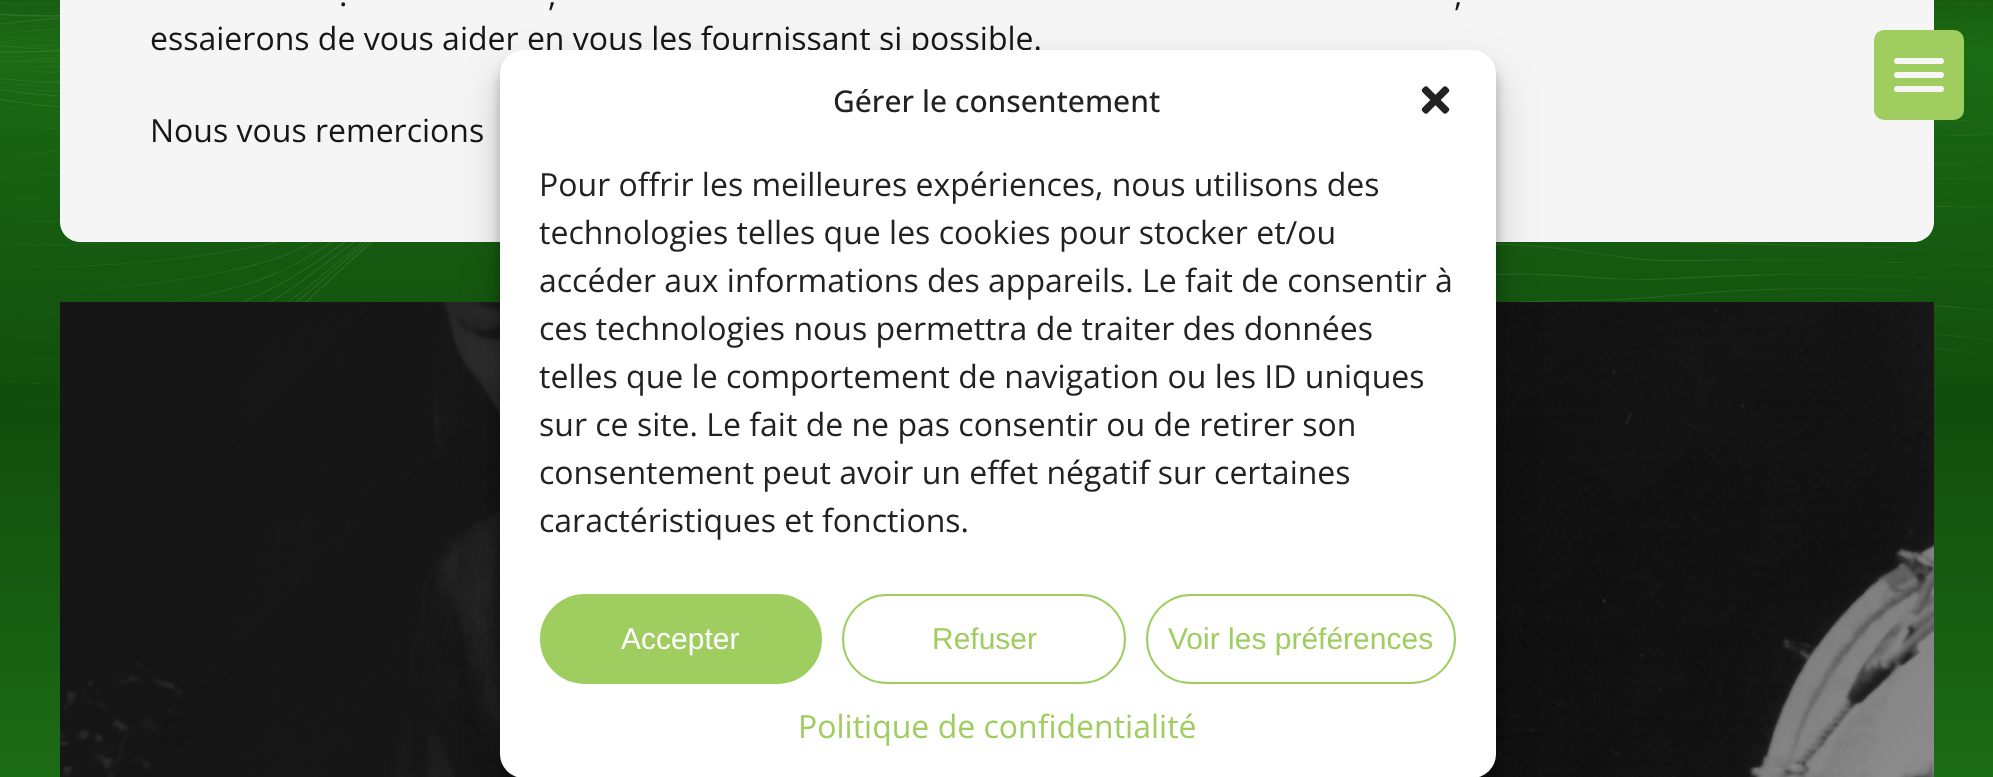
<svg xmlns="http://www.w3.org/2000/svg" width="1993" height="777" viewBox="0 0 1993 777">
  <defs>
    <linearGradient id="g1" gradientUnits="userSpaceOnUse" x1="997" y1="-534" x2="997" y2="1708"><stop offset="0" stop-color="rgb(0,0,0)"/><stop offset="0.09" stop-color="rgb(0,0,0)"/><stop offset="0.26" stop-color="rgb(27,107,20)"/><stop offset="0.42" stop-color="rgb(17,77,13)"/><stop offset="0.6" stop-color="rgb(29,110,22)"/><stop offset="0.81" stop-color="rgb(0,0,0)"/></linearGradient>
  </defs>
  <rect width="100%" height="100%" fill="rgb(255,255,255)"/>
  <rect x="0" y="0" width="1993" height="777" fill="url(#g1)"/>
  <image x="0" y="3" width="1993" height="426" href="pic2.png"/>
  <path d="M60-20H1914C1925-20 1934-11 1934 0V222C1934 233 1925 242 1914 242H80C69 242 60 233 60 222Z" fill="rgb(245,245,245)"/>
  <g font-family="Open Sans" font-size="32" fill="rgb(23,22,22)">
    <text x="339" y="6">.</text>
    <text x="548" y="6">,</text>
    <text x="1454" y="6">,</text>
    <text x="150" y="50">essaierons de vous aider en vous les fournissant si possible.</text>
    <text x="150" y="142">Nous vous remercions</text>
  </g>
  <image x="60" y="302" width="1874" height="475" href="pic1.png"/>
  <rect x="1874" y="30" width="90" height="90" rx="10" fill="rgb(160,205,96)"/>
  <rect x="1894" y="72" width="50" height="6" rx="3" fill="rgb(245,245,245)"/>
  <rect x="1894" y="58" width="50" height="6" rx="3" fill="rgb(245,245,245)"/>
  <rect x="1894" y="86" width="50" height="6" rx="3" fill="rgb(245,245,245)"/>
  <rect x="500" y="62" width="996" height="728" rx="24" fill="rgba(0,0,0,0.23)" filter="blur(6px)"/>
  <rect x="500" y="70" width="996" height="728" rx="24" fill="rgba(0,0,0,0.19)" filter="blur(20px)"/>
  <rect x="500" y="50" width="996" height="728" rx="24" fill="rgb(255,255,255)"/>
  <text x="833" y="112" font-family="Open Sans" font-size="30" font-weight="500" fill="rgb(34,34,34)">Gérer le consentement</text>
  <image x="1421" y="86" width="29" height="28" href="pic3.png"/>
  <g font-family="Open Sans" font-size="32" fill="rgb(34,34,34)">
    <text>
      <tspan x="539" y="196">Pour offrir les meilleures expériences, nous utilisons des</tspan>
      <tspan x="539" y="244">technologies telles que les cookies pour stocker et/ou</tspan>
      <tspan x="539" y="292">accéder aux informations des appareils. Le fait de consentir à</tspan>
      <tspan x="539" y="340">ces technologies nous permettra de traiter des données</tspan>
      <tspan x="539" y="388">telles que le comportement de navigation ou les ID uniques</tspan>
      <tspan x="539" y="436">sur ce site. Le fait de ne pas consentir ou de retirer son</tspan>
      <tspan x="539" y="484">consentement peut avoir un effet négatif sur certaines</tspan>
      <tspan x="539" y="532">caractéristiques et fonctions.</tspan>
    </text>
  </g>
  <rect x="541" y="595" width="280" height="88" rx="44" fill="rgb(160,205,96)" stroke="rgb(160,205,96)" stroke-width="2"/>
  <text x="621" y="649" font-family="Liberation Sans" font-size="30" fill="rgb(255,255,255)">Accepter</text>
  <rect x="843" y="595" width="282" height="88" rx="44" fill="none" stroke="rgb(160,205,96)" stroke-width="2"/>
  <text x="932" y="649" font-family="Liberation Sans" font-size="30" fill="rgb(160,205,96)">Refuser</text>
  <rect x="1147" y="595" width="308" height="88" rx="44" fill="none" stroke="rgb(160,205,96)" stroke-width="2"/>
  <text x="1168" y="649" font-family="Liberation Sans" font-size="30" fill="rgb(160,205,96)">Voir les préférences</text>
  <text x="798" y="738" font-family="Open Sans" font-size="32" fill="rgb(160,205,96)">Politique de confidentialité</text>
</svg>
